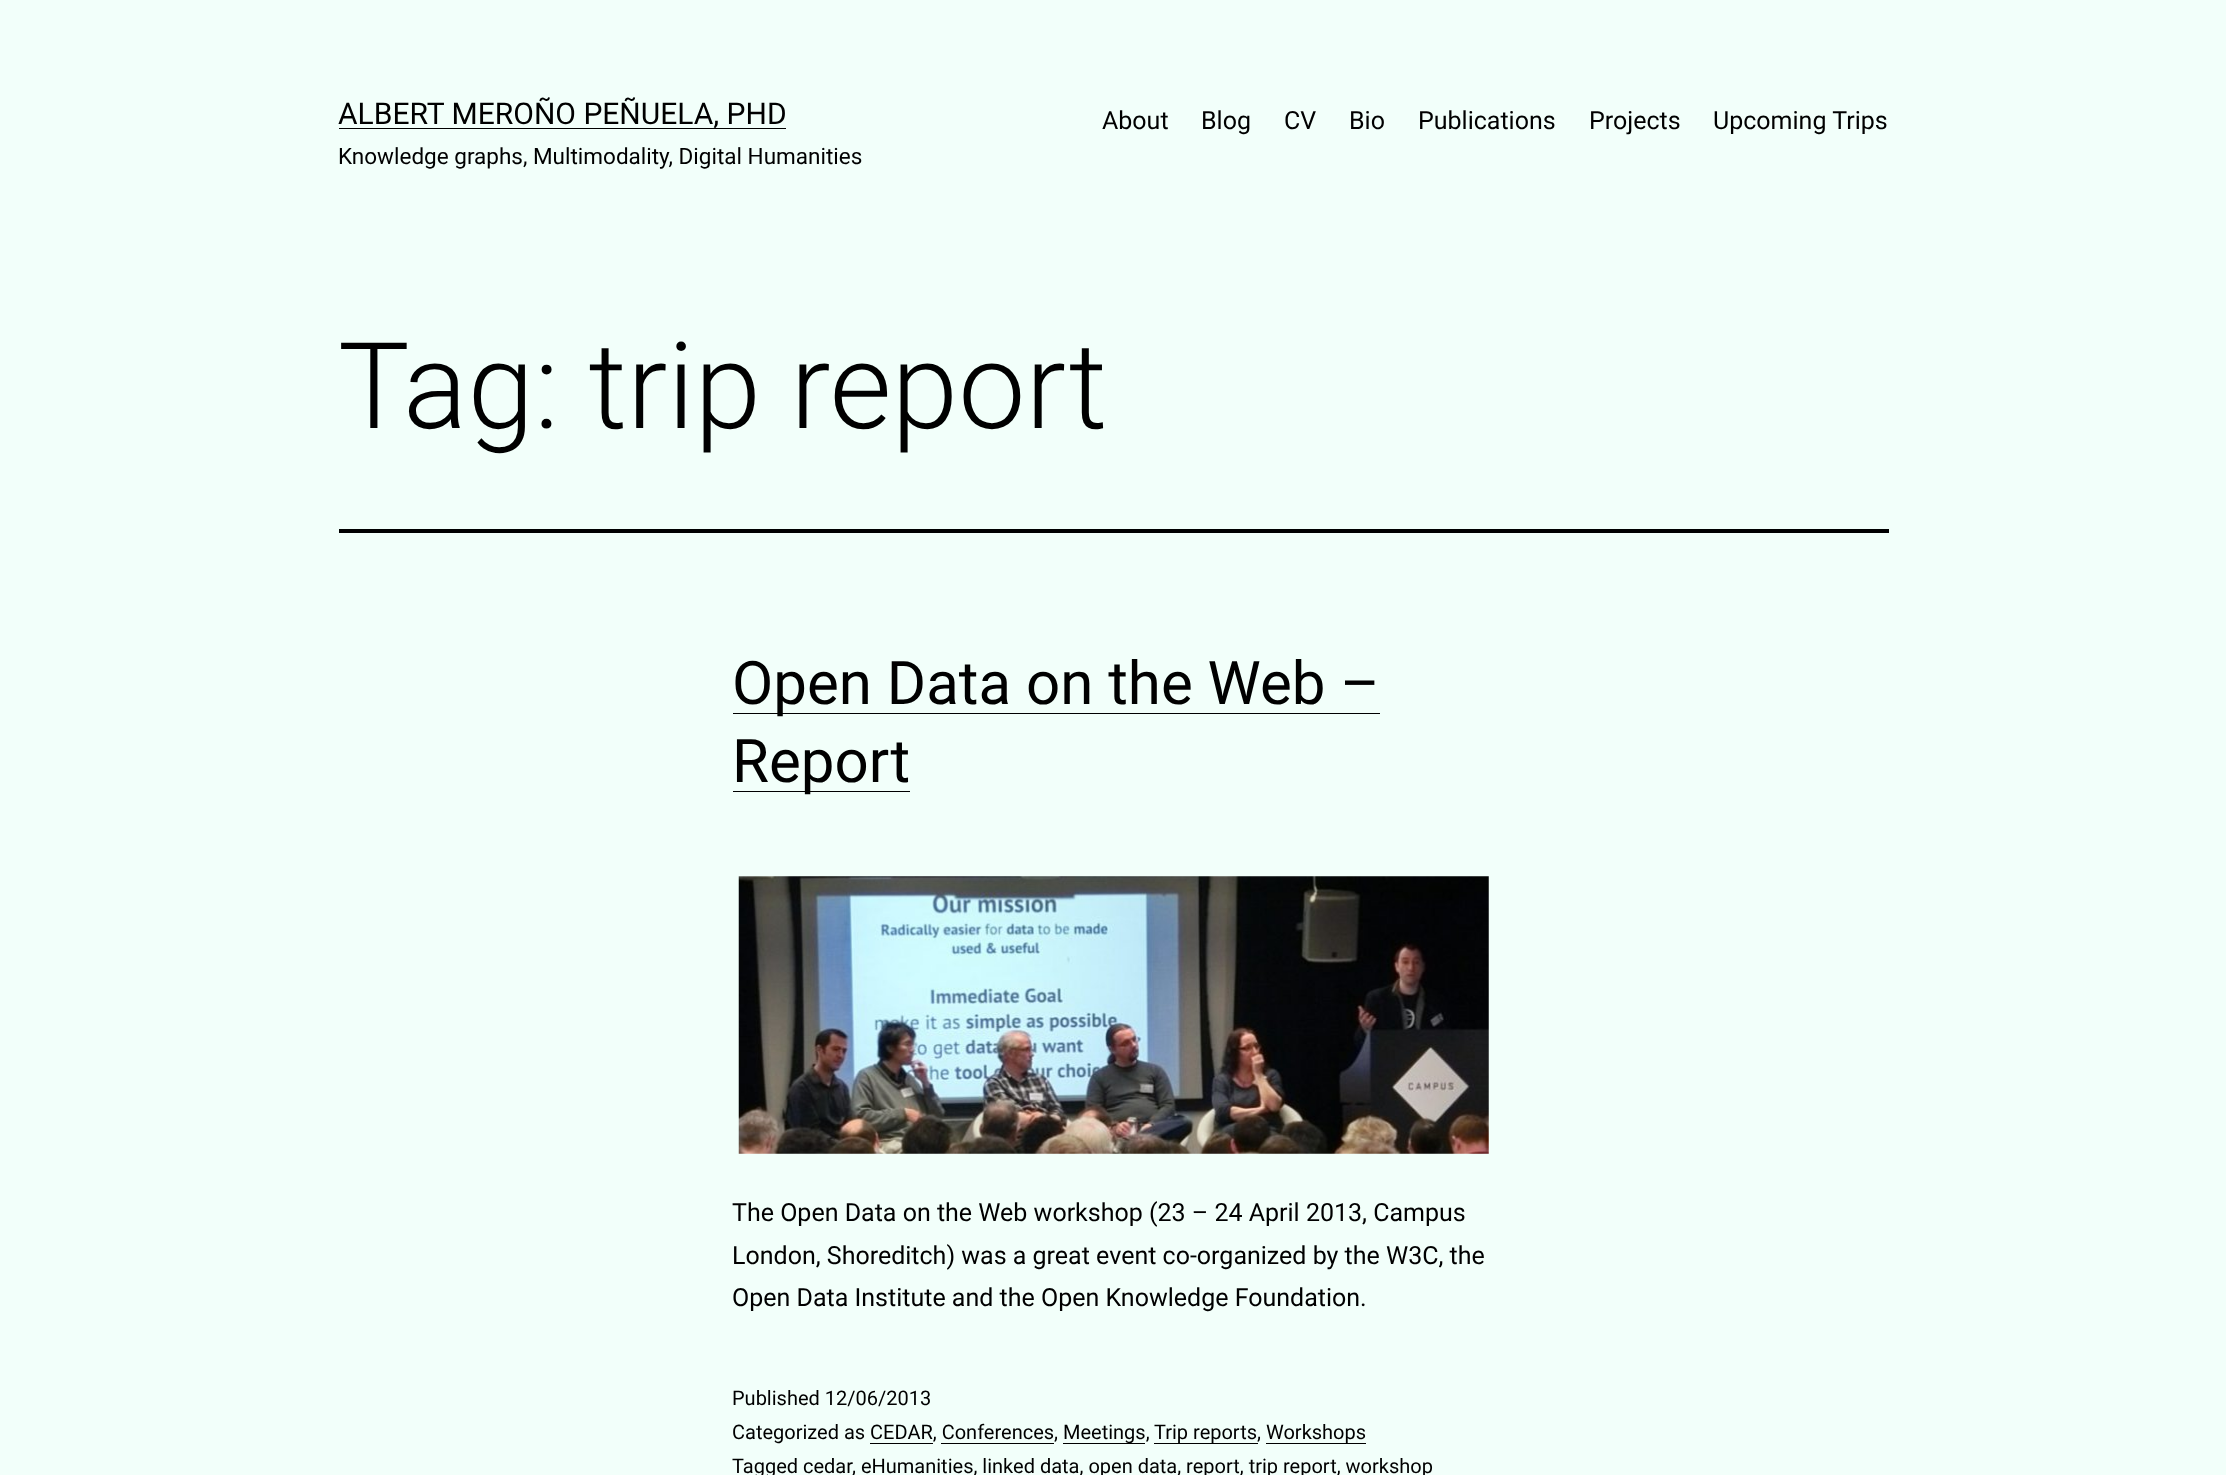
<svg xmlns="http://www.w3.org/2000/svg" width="2226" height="1475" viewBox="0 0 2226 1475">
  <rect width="100%" height="100%" fill="rgb(242,255,250)"/>
  <rect x="339" y="128" width="447" height="1" fill="rgb(0,0,0)"/>
  <text x="338" y="124" font-family="Roboto" font-size="30" fill="rgb(0,0,0)">ALBERT MEROÑO PEÑUELA, PHD</text>
  <text x="338" y="164" font-family="Roboto" font-size="22.5" fill="rgb(0,0,0)">Knowledge graphs, Multimodality, Digital Humanities</text>
  <g font-family="Roboto" font-size="25" fill="rgb(0,0,0)">
    <text x="1102" y="129">About</text>
    <text x="1201" y="129">Blog</text>
    <text x="1284" y="129">CV</text>
    <text x="1349" y="129">Bio</text>
    <text x="1418" y="129">Publications</text>
    <text x="1589" y="129">Projects</text>
    <text x="1713" y="129">Upcoming Trips</text>
  </g>
  <rect x="339" y="529" width="1550" height="4" fill="rgb(0,0,0)"/>
  <text x="338" y="428" font-family="Roboto" font-size="120" font-weight="300" fill="rgb(0,0,0)">Tag: trip report</text>
  <rect x="733" y="713" width="647" height="1" fill="rgb(0,0,0)"/>
  <text x="732" y="704" font-family="Roboto" font-size="60" fill="rgb(0,0,0)">Open Data on the Web –</text>
  <rect x="733" y="791" width="177" height="1" fill="rgb(0,0,0)"/>
  <text x="732" y="782" font-family="Roboto" font-size="60" fill="rgb(0,0,0)">Report</text>
  <image x="738" y="876" width="751" height="278" href="pic1.png"/>
  <g font-family="Roboto" font-size="25" fill="rgb(0,0,0)">
    <text>
      <tspan x="732" y="1221">The Open Data on the Web workshop (23 – 24 April 2013, Campus</tspan>
      <tspan x="732" y="1264">London, Shoreditch) was a great event co-organized by the W3C, the</tspan>
      <tspan x="732" y="1306">Open Data Institute and the Open Knowledge Foundation.</tspan>
    </text>
  </g>
  <g font-family="Roboto" font-size="20" fill="rgb(0,0,0)">
    <text>
      <tspan x="732" y="1405">Published 12/06/2013</tspan>
      <tspan x="732" y="1439">Categorized as CEDAR, Conferences,</tspan>
    </text>
  </g>
  <rect x="1063" y="1443" width="82" height="1" fill="rgb(0,0,0)"/>
  <text x="1063" y="1439" font-family="Roboto" font-size="20" fill="rgb(0,0,0)">Meetings,</text>
  <rect x="1154" y="1443" width="104" height="1" fill="rgb(0,0,0)"/>
  <text x="1154" y="1439" font-family="Roboto" font-size="20" fill="rgb(0,0,0)">Trip reports,</text>
  <rect x="1266" y="1443" width="100" height="1" fill="rgb(0,0,0)"/>
  <text x="1266" y="1439" font-family="Roboto" font-size="20" fill="rgb(0,0,0)">Workshops</text>
  <rect x="870" y="1443" width="63" height="1" fill="rgb(0,0,0)"/>
  <rect x="941" y="1443" width="113" height="1" fill="rgb(0,0,0)"/>
  <g font-family="Roboto" font-size="20" fill="rgb(0,0,0)">
    <text x="732" y="1473">Tagged cedar</text>
    <text x="852" y="1473">, eHumanities, linked data, open data, report, trip report, workshop</text>
  </g>
</svg>
